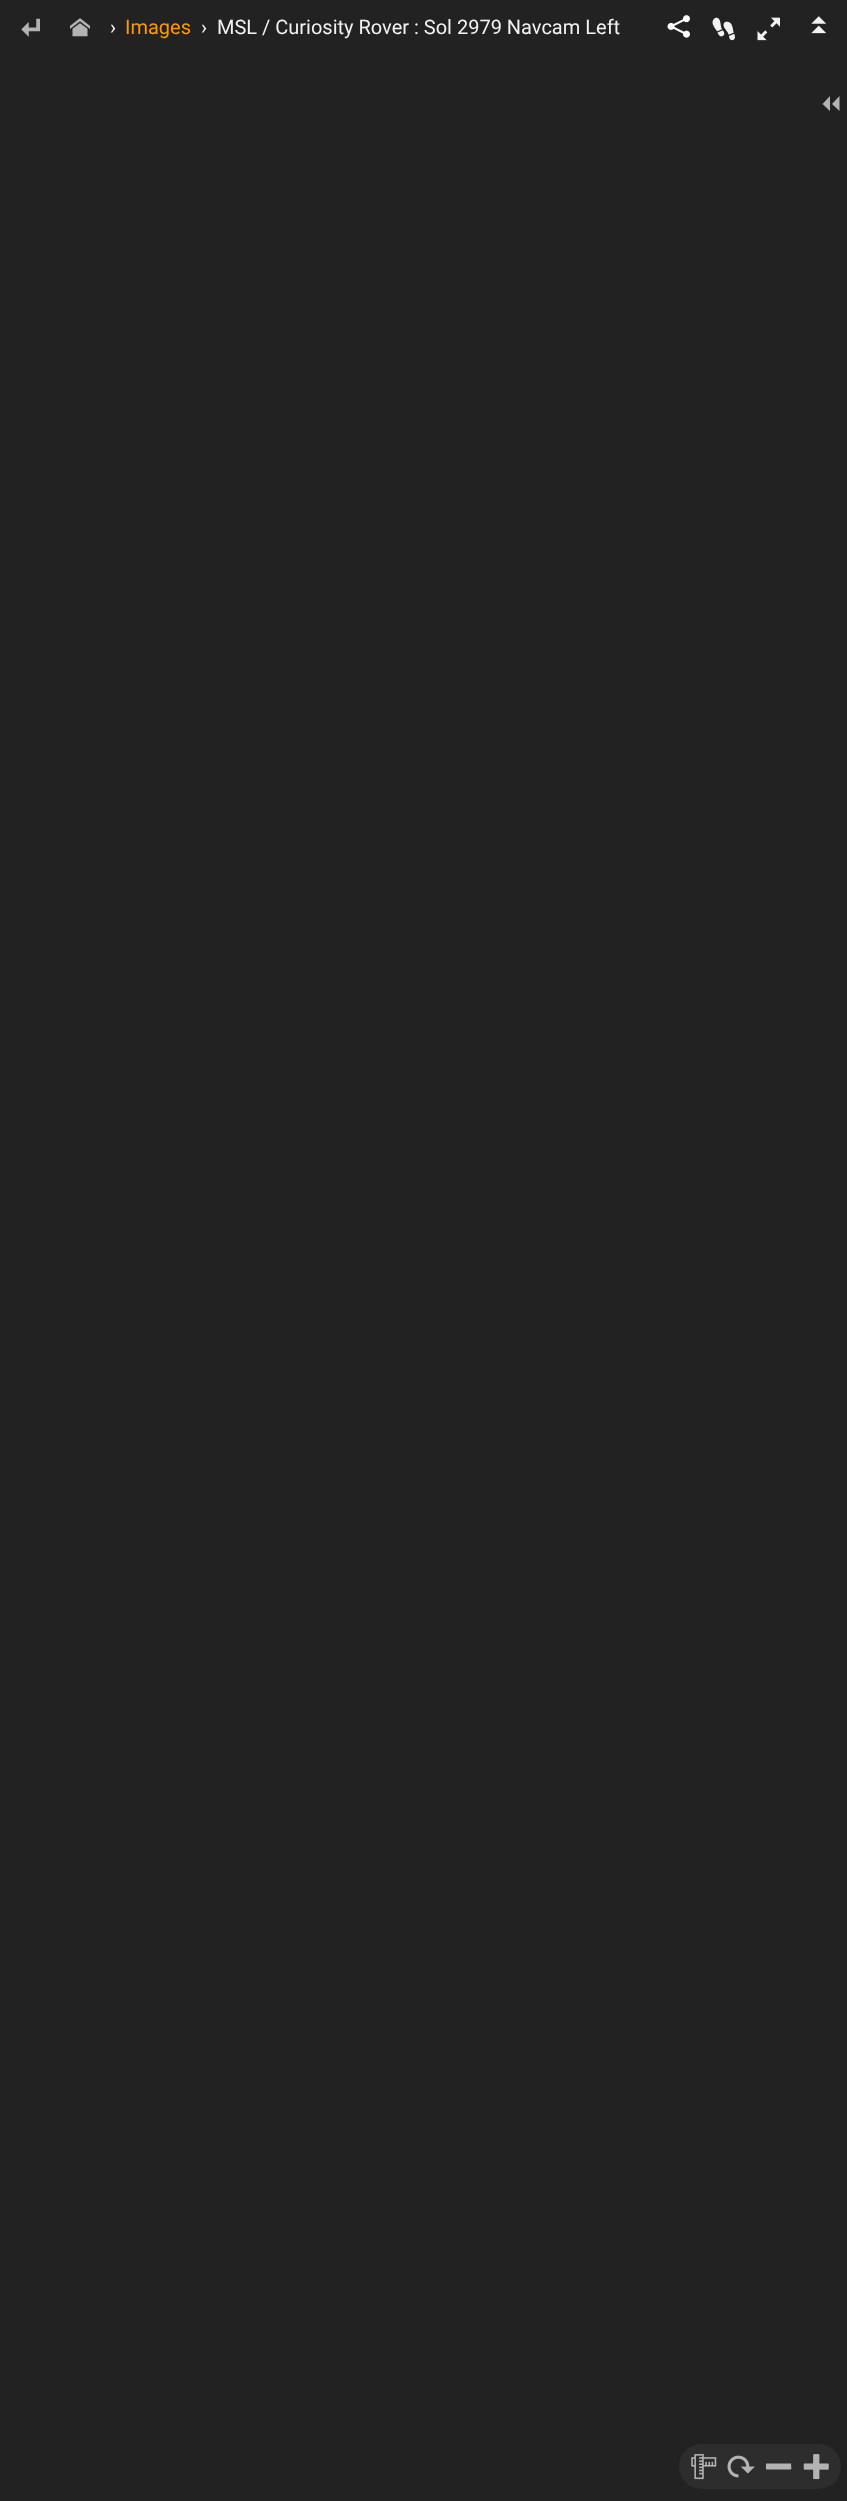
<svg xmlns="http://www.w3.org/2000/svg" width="847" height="2501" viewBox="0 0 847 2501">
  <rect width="100%" height="100%" fill="rgb(34,34,34)"/>
  <image x="21" y="18" width="19" height="19" href="pic1.png"/>
  <image x="70" y="18" width="20" height="19" href="pic2.png"/>
  <text x="110" y="34" font-family="Roboto" font-size="20" fill="rgb(242,242,242)">›</text>
  <text x="125" y="34" font-family="Roboto" font-size="20" fill="rgb(255,153,0)">Images</text>
  <g font-family="Roboto" font-size="20" fill="rgb(242,242,242)">
    <text x="201" y="34">›</text>
    <text x="217" y="34">MSL / Curiosity Rover : Sol 2979 Navcam Left</text>
  </g>
  <image x="667" y="15" width="23" height="23" href="pic3.png"/>
  <image x="712" y="17" width="23" height="24" href="pic4.png"/>
  <image x="757" y="17" width="23" height="24" href="pic5.png"/>
  <image x="811" y="16" width="16" height="18" href="pic6.png"/>
  <path d="M839.5 96L832 104L839.5 111ZM830 96L822.5 104L830 111Z" fill="rgb(179,179,179)"/>
  <rect x="679" y="2444" width="162" height="45" rx="22.5" fill="rgb(45,45,45)"/>
  <image x="691" y="2454" width="26" height="26" href="pic7.png"/>
  <image x="727" y="2455" width="28" height="23" href="pic8.png"/>
  <path d="M766 2464C766 2470.5 765 2469.5 771 2469.5H786.5C792.5 2469.5 791.5 2470.5 791 2464V2463.5H766.5Z" fill="rgb(179,179,179)"/>
  <image x="803" y="2454" width="26" height="26" href="pic9.png"/>
</svg>
